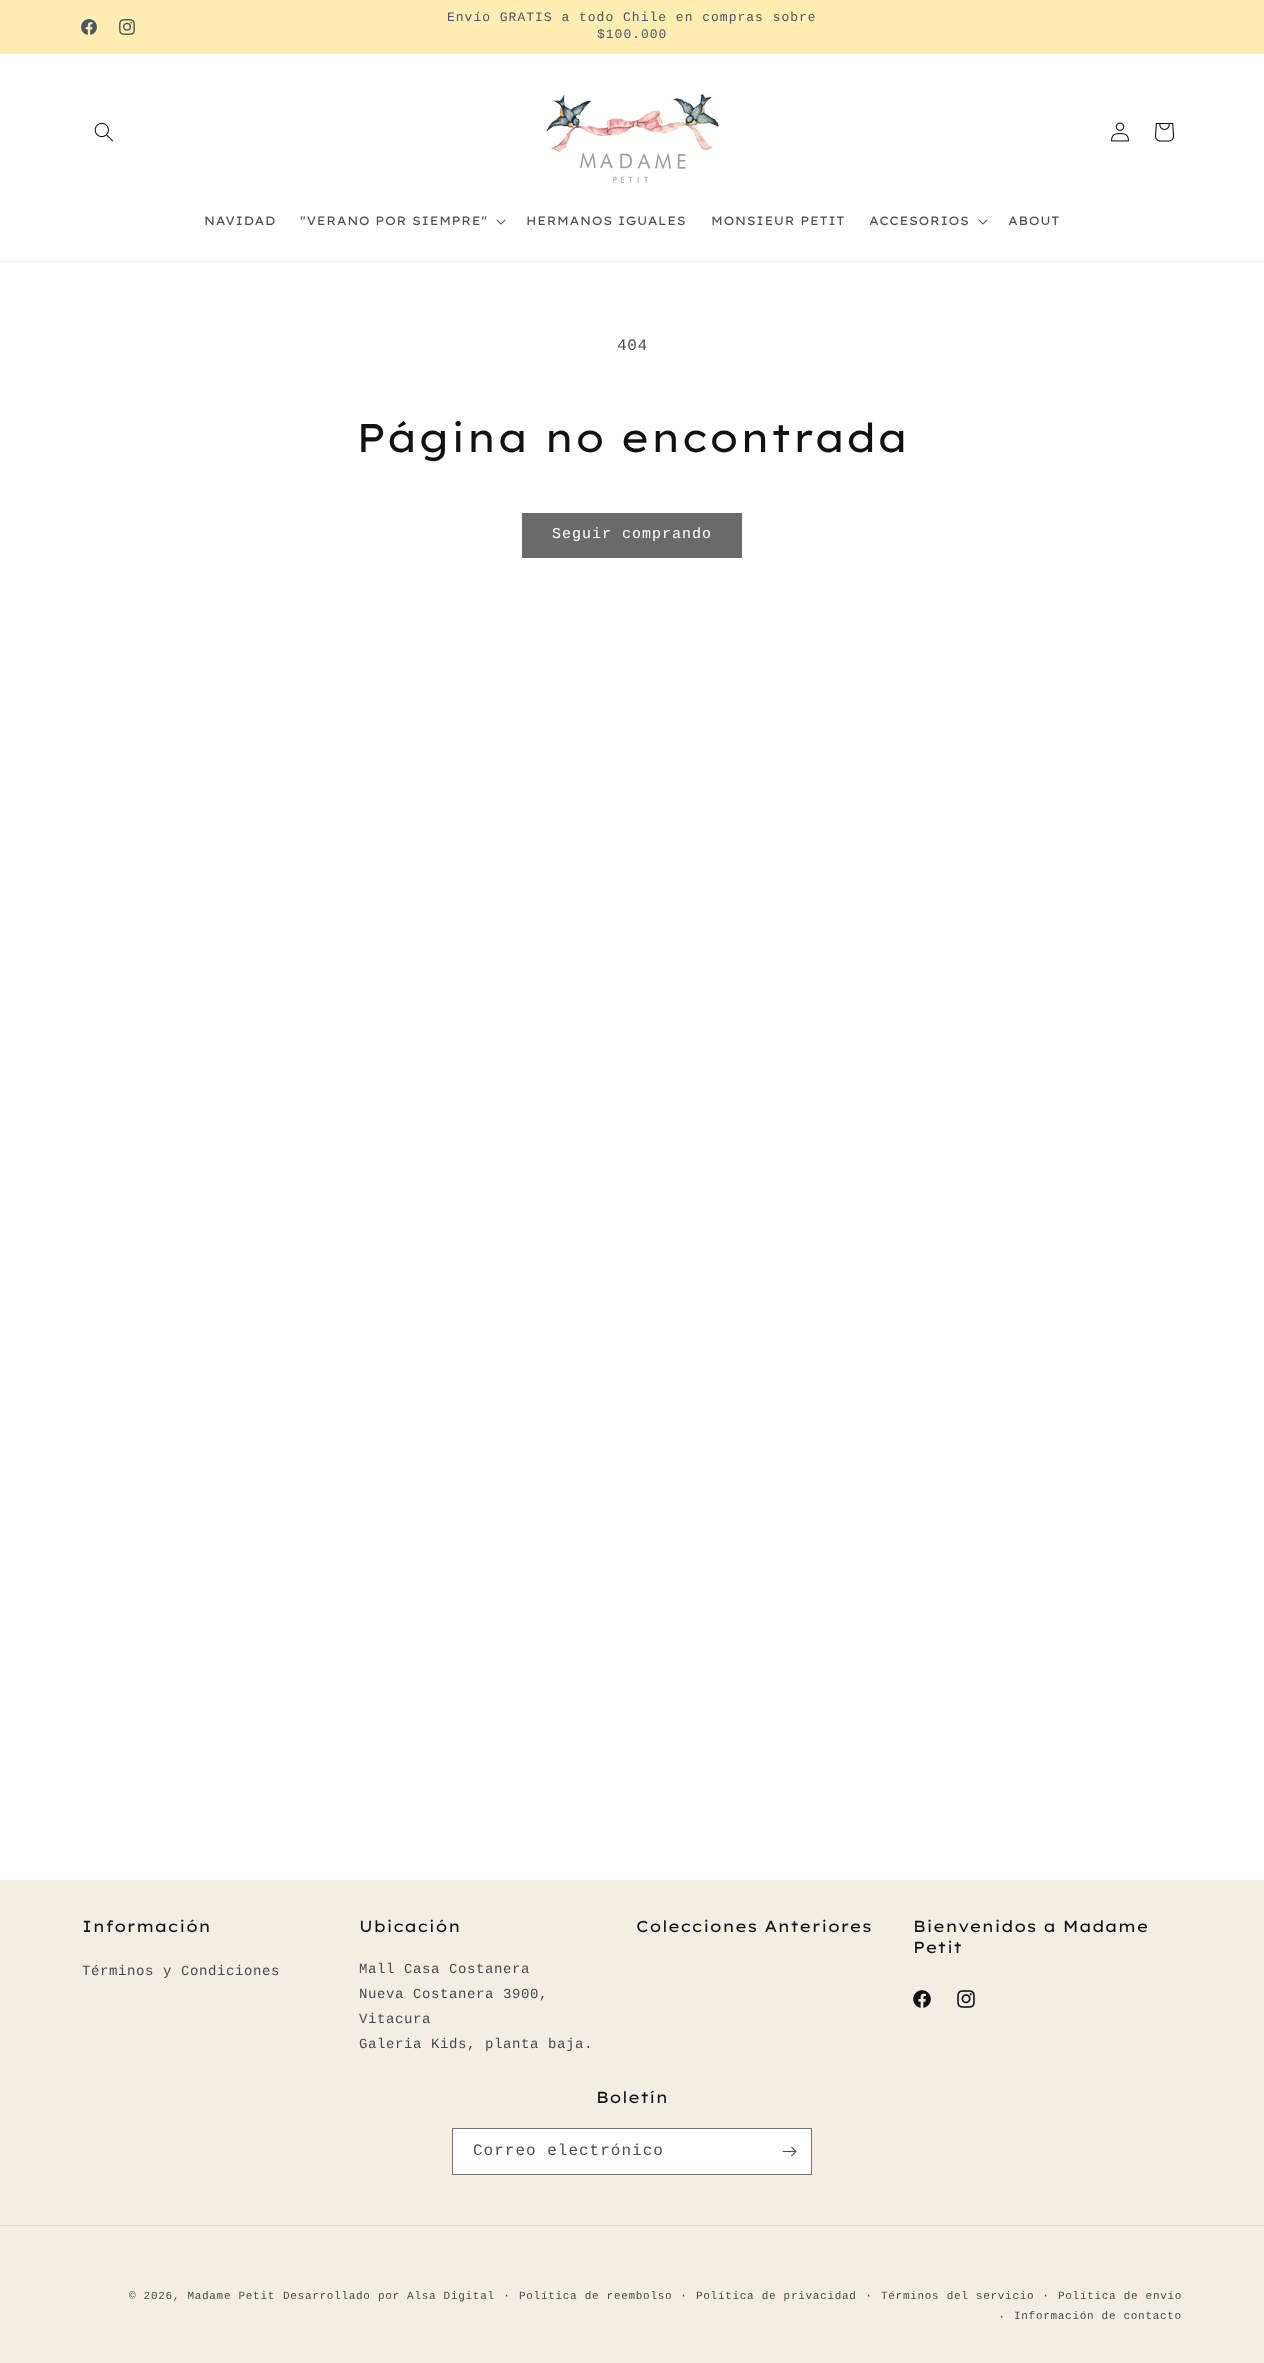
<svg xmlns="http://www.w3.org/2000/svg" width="1264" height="2363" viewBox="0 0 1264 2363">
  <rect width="100%" height="100%" fill="rgb(255,255,255)"/>
  <rect x="0" y="0" width="1264" height="54" fill="rgb(255,238,177)"/>
  <image x="81" y="19" width="16" height="16" href="pic1.png"/>
  <image x="119" y="19" width="16" height="16" href="pic2.png"/>
  <g font-family="Liberation Mono" font-size="13" letter-spacing="1" fill="rgb(75,85,99)">
    <text x="447" y="21">Envío GRATIS a todo Chile en compras sobre</text>
    <text x="597" y="38">$100.000</text>
  </g>
  <rect x="0" y="261" width="1264" height="1" fill="rgb(236,236,236)"/>
  <image x="94" y="122" width="19" height="20" href="pic3.png"/>
  <image x="546" y="94" width="173" height="89" href="pic4.png"/>
  <image x="1111" y="122" width="18" height="20" href="pic5.png"/>
  <image x="1155" y="123" width="20" height="19" href="pic6.png"/>
  <g font-family="Lexend Exa" font-size="12" letter-spacing="0.6" fill="rgb(77,77,77)">
    <text x="204" y="225">NAVIDAD</text>
    <text x="300" y="225">"VERANO POR SIEMPRE"</text>
  </g>
  <image x="496" y="219" width="10" height="6" href="pic7.png"/>
  <g font-family="Lexend Exa" font-size="12" letter-spacing="0.6" fill="rgb(77,77,77)">
    <text x="526" y="225">HERMANOS IGUALES</text>
    <text x="711" y="225">MONSIEUR PETIT</text>
    <text x="869" y="225">ACCESORIOS</text>
  </g>
  <image x="978" y="219" width="10" height="6" href="pic7.png"/>
  <text x="1008" y="225" font-family="Lexend Exa" font-size="12" letter-spacing="0.6" fill="rgb(77,77,77)">ABOUT</text>
  <text x="617" y="350" font-family="Liberation Mono" font-size="16" letter-spacing="0.6" fill="rgb(77,77,77)">404</text>
  <text x="356" y="452" font-family="Lexend Exa" font-size="40" letter-spacing="0.6" fill="rgb(18,18,18)">Página no encontrada</text>
  <rect x="522" y="513" width="220" height="45" fill="rgb(106,106,106)"/>
  <text x="552" y="538" font-family="Liberation Mono" font-size="15" letter-spacing="1" fill="rgb(255,255,255)">Seguir comprando</text>
  <rect x="0" y="1880" width="1264" height="483" fill="rgb(244,237,227)"/>
  <text x="82" y="1932" font-family="Lexend Exa" font-size="16" letter-spacing="0.6" fill="rgb(18,18,18)">Información</text>
  <text x="82" y="1975" font-family="Liberation Mono" font-size="14" letter-spacing="0.6" fill="rgb(75,73,70)">Términos y Condiciones</text>
  <text x="359" y="1932" font-family="Lexend Exa" font-size="16" letter-spacing="0.6" fill="rgb(18,18,18)">Ubicación</text>
  <g font-family="Liberation Mono" font-size="14" letter-spacing="0.6" fill="rgb(75,73,70)">
    <text>
      <tspan x="359" y="1973">Mall Casa Costanera</tspan>
      <tspan x="359" y="1998">Nueva Costanera 3900,</tspan>
      <tspan x="359" y="2023">Vitacura</tspan>
      <tspan x="359" y="2048">Galeria Kids, planta baja.</tspan>
    </text>
  </g>
  <g font-family="Lexend Exa" font-size="16" letter-spacing="0.6" fill="rgb(18,18,18)">
    <text x="636" y="1932">Colecciones Anteriores</text>
    <text>
      <tspan x="913" y="1932">Bienvenidos a Madame</tspan>
      <tspan x="913" y="1953">Petit</tspan>
    </text>
  </g>
  <image x="913" y="1990" width="18" height="18" href="pic8.png"/>
  <image x="957" y="1990" width="18" height="18" href="pic9.png"/>
  <text x="596" y="2103" font-family="Lexend Exa" font-size="16" letter-spacing="0.6" fill="rgb(18,18,18)">Boletín</text>
  <rect x="453" y="2129" width="358" height="45" fill="rgb(255,255,255)"/>
  <rect x="452.5" y="2128.5" width="359" height="46" fill="none" stroke="rgb(120,117,112)"/>
  <text x="473" y="2155" font-family="Liberation Mono" font-size="16" letter-spacing="1" fill="rgb(77,77,77)">Correo electrónico</text>
  <image x="782" y="2146" width="15" height="11" href="pic10.png"/>
  <rect x="0" y="2225" width="1264" height="1" fill="rgb(226,219,210)"/>
  <g font-family="Liberation Mono" font-size="11" letter-spacing="0.7" fill="rgb(75,73,70)">
    <text x="129" y="2299">© 2026, Madame Petit</text>
    <text x="283" y="2299">Desarrollado por Alsa Digital</text>
  </g>
  <text x="503" y="2299" font-family="Liberation Mono" font-size="12" letter-spacing="0.7" fill="rgb(75,73,70)">·</text>
  <text x="519" y="2299" font-family="Liberation Mono" font-size="11" letter-spacing="0.7" fill="rgb(75,73,70)">Política de reembolso</text>
  <text x="680" y="2299" font-family="Liberation Mono" font-size="12" letter-spacing="0.7" fill="rgb(75,73,70)">·</text>
  <text x="696" y="2299" font-family="Liberation Mono" font-size="11" letter-spacing="0.7" fill="rgb(75,73,70)">Política de privacidad</text>
  <text x="865" y="2299" font-family="Liberation Mono" font-size="12" letter-spacing="0.7" fill="rgb(75,73,70)">·</text>
  <text x="881" y="2299" font-family="Liberation Mono" font-size="11" letter-spacing="0.7" fill="rgb(75,73,70)">Términos del servicio</text>
  <text x="1042" y="2299" font-family="Liberation Mono" font-size="12" letter-spacing="0.7" fill="rgb(75,73,70)">·</text>
  <text x="1058" y="2299" font-family="Liberation Mono" font-size="11" letter-spacing="0.7" fill="rgb(75,73,70)">Política de envío</text>
  <text x="998" y="2320" font-family="Liberation Mono" font-size="12" letter-spacing="0.7" fill="rgb(75,73,70)">·</text>
  <text x="1014" y="2319" font-family="Liberation Mono" font-size="11" letter-spacing="0.7" fill="rgb(75,73,70)">Información de contacto</text>
</svg>
